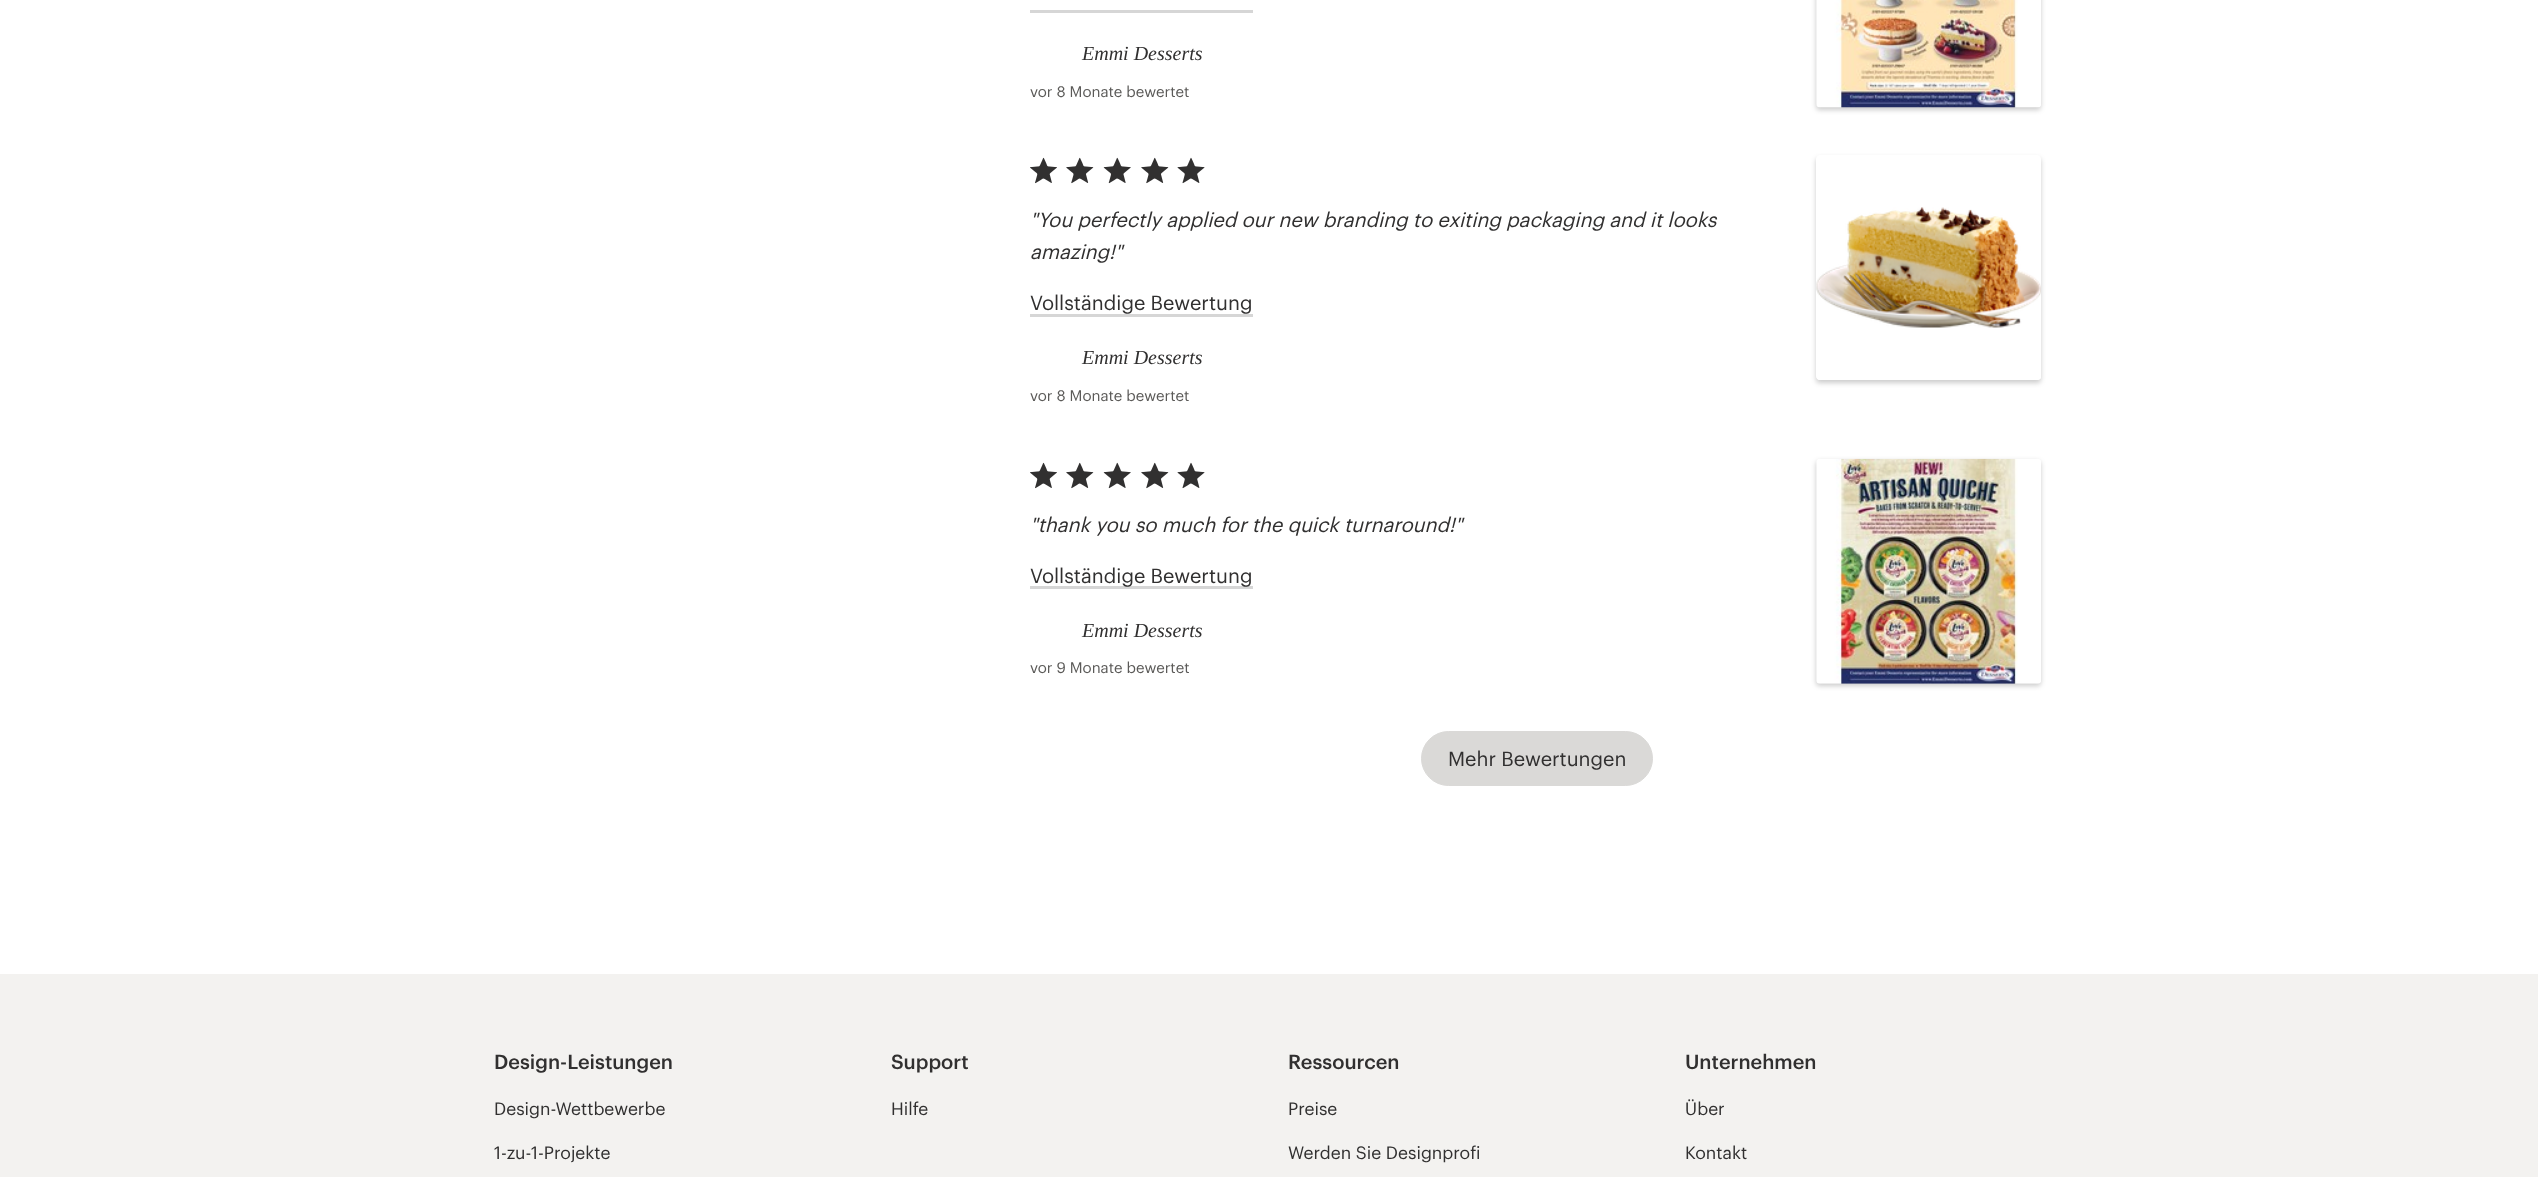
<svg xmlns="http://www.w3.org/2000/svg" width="2538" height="1177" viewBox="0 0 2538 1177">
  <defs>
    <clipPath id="clip1"><path d="M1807 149H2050V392H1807ZM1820 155H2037C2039 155 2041 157 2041 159V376C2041 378 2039 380 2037 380H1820C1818 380 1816 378 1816 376V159C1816 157 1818 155 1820 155Z" clip-rule="evenodd"/></clipPath>
  </defs>
  <rect width="100%" height="100%" fill="rgb(243,242,240)"/>
  <rect x="0" y="0" width="2538" height="974" fill="rgb(255,255,255)"/>
  <rect x="1030" y="10" width="223" height="3" fill="rgb(214,214,214)"/>
  <text x="1082" y="60" font-family="Liberation Serif" font-size="20" font-style="italic" fill="rgb(49,48,48)">Emmi Desserts</text>
  <text x="1030" y="97" font-family="Graphik" font-size="15" fill="rgb(91,90,88)">vor 8 Monate bewertet</text>
  <rect x="1816" y="-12" width="225" height="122" rx="4" fill="rgba(0,0,0,0.2)" filter="blur(2.5px)"/>
  <image x="1816" y="0" width="225" height="108" href="pic1.png"/>
  <image x="1030" y="157" width="27" height="27" href="pic2.png"/>
  <image x="1066" y="157" width="28" height="27" href="pic3.png"/>
  <image x="1103" y="157" width="28" height="27" href="pic4.png"/>
  <image x="1141" y="157" width="28" height="27" href="pic3.png"/>
  <image x="1177" y="157" width="28" height="27" href="pic5.png"/>
  <g font-family="Graphik" font-size="20" font-style="italic" fill="rgb(49,48,48)">
    <text>
      <tspan x="1030" y="227">"You perfectly applied our new branding to exiting packaging and it looks</tspan>
      <tspan x="1030" y="259">amazing!"</tspan>
    </text>
  </g>
  <text x="1030" y="310" font-family="Graphik" font-size="20" fill="rgb(49,48,48)">Vollständige Bewertung</text>
  <rect x="1030" y="314" width="223" height="3" fill="rgb(214,214,214)"/>
  <text x="1082" y="364" font-family="Liberation Serif" font-size="20" font-style="italic" fill="rgb(49,48,48)">Emmi Desserts</text>
  <text x="1030" y="401" font-family="Graphik" font-size="15" fill="rgb(91,90,88)">vor 8 Monate bewertet</text>
  <g clip-path="url(#clip1)">
    <rect x="1816" y="158" width="225" height="225" rx="4" fill="rgba(0,0,0,0.2)" filter="blur(2.5px)"/>
  </g>
  <image x="1816" y="164" width="225" height="216" href="pic6.png"/>
  <image x="1030" y="462" width="27" height="27" href="pic2.png"/>
  <image x="1066" y="462" width="28" height="27" href="pic3.png"/>
  <image x="1103" y="462" width="28" height="27" href="pic4.png"/>
  <image x="1141" y="462" width="28" height="27" href="pic3.png"/>
  <image x="1177" y="462" width="28" height="27" href="pic5.png"/>
  <text x="1030" y="532" font-family="Graphik" font-size="20" font-style="italic" fill="rgb(49,48,48)">"thank you so much for the quick turnaround!"</text>
  <rect x="1030" y="586" width="223" height="3" fill="rgb(214,214,214)"/>
  <text x="1030" y="583" font-family="Graphik" font-size="20" fill="rgb(49,48,48)">Vollständige Bewertung</text>
  <text x="1082" y="637" font-family="Liberation Serif" font-size="20" font-style="italic" fill="rgb(49,48,48)">Emmi Desserts</text>
  <text x="1030" y="673" font-family="Graphik" font-size="15" fill="rgb(91,90,88)">vor 9 Monate bewertet</text>
  <rect x="1816" y="461" width="225" height="225" rx="4" fill="rgba(0,0,0,0.2)" filter="blur(2.5px)"/>
  <image x="1816" y="458" width="225" height="226" href="pic7.png"/>
  <rect x="1421.5" y="731.5" width="231" height="54" rx="27" fill="rgb(218,217,215)" stroke="rgb(218,217,215)"/>
  <text x="1448" y="766" font-family="Graphik" font-size="20" fill="rgb(49,48,48)">Mehr Bewertungen</text>
  <text x="494" y="1069" font-family="Graphik" font-size="20" font-weight="500" fill="rgb(49,48,48)">Design-Leistungen</text>
  <g font-family="Graphik" font-size="17.5" fill="rgb(49,48,48)">
    <text x="494" y="1115">Design-Wettbewerbe</text>
    <text x="494" y="1159">1-zu-1-Projekte</text>
  </g>
  <text x="891" y="1069" font-family="Graphik" font-size="20" font-weight="500" fill="rgb(49,48,48)">Support</text>
  <text x="891" y="1115" font-family="Graphik" font-size="17.5" fill="rgb(49,48,48)">Hilfe</text>
  <text x="1288" y="1069" font-family="Graphik" font-size="20" font-weight="500" fill="rgb(49,48,48)">Ressourcen</text>
  <g font-family="Graphik" font-size="17.5" fill="rgb(49,48,48)">
    <text x="1288" y="1115">Preise</text>
    <text x="1288" y="1159">Werden Sie Designprofi</text>
  </g>
  <text x="1685" y="1069" font-family="Graphik" font-size="20" font-weight="500" fill="rgb(49,48,48)">Unternehmen</text>
  <g font-family="Graphik" font-size="17.5" fill="rgb(49,48,48)">
    <text x="1685" y="1115">Über</text>
    <text x="1685" y="1159">Kontakt</text>
  </g>
</svg>
